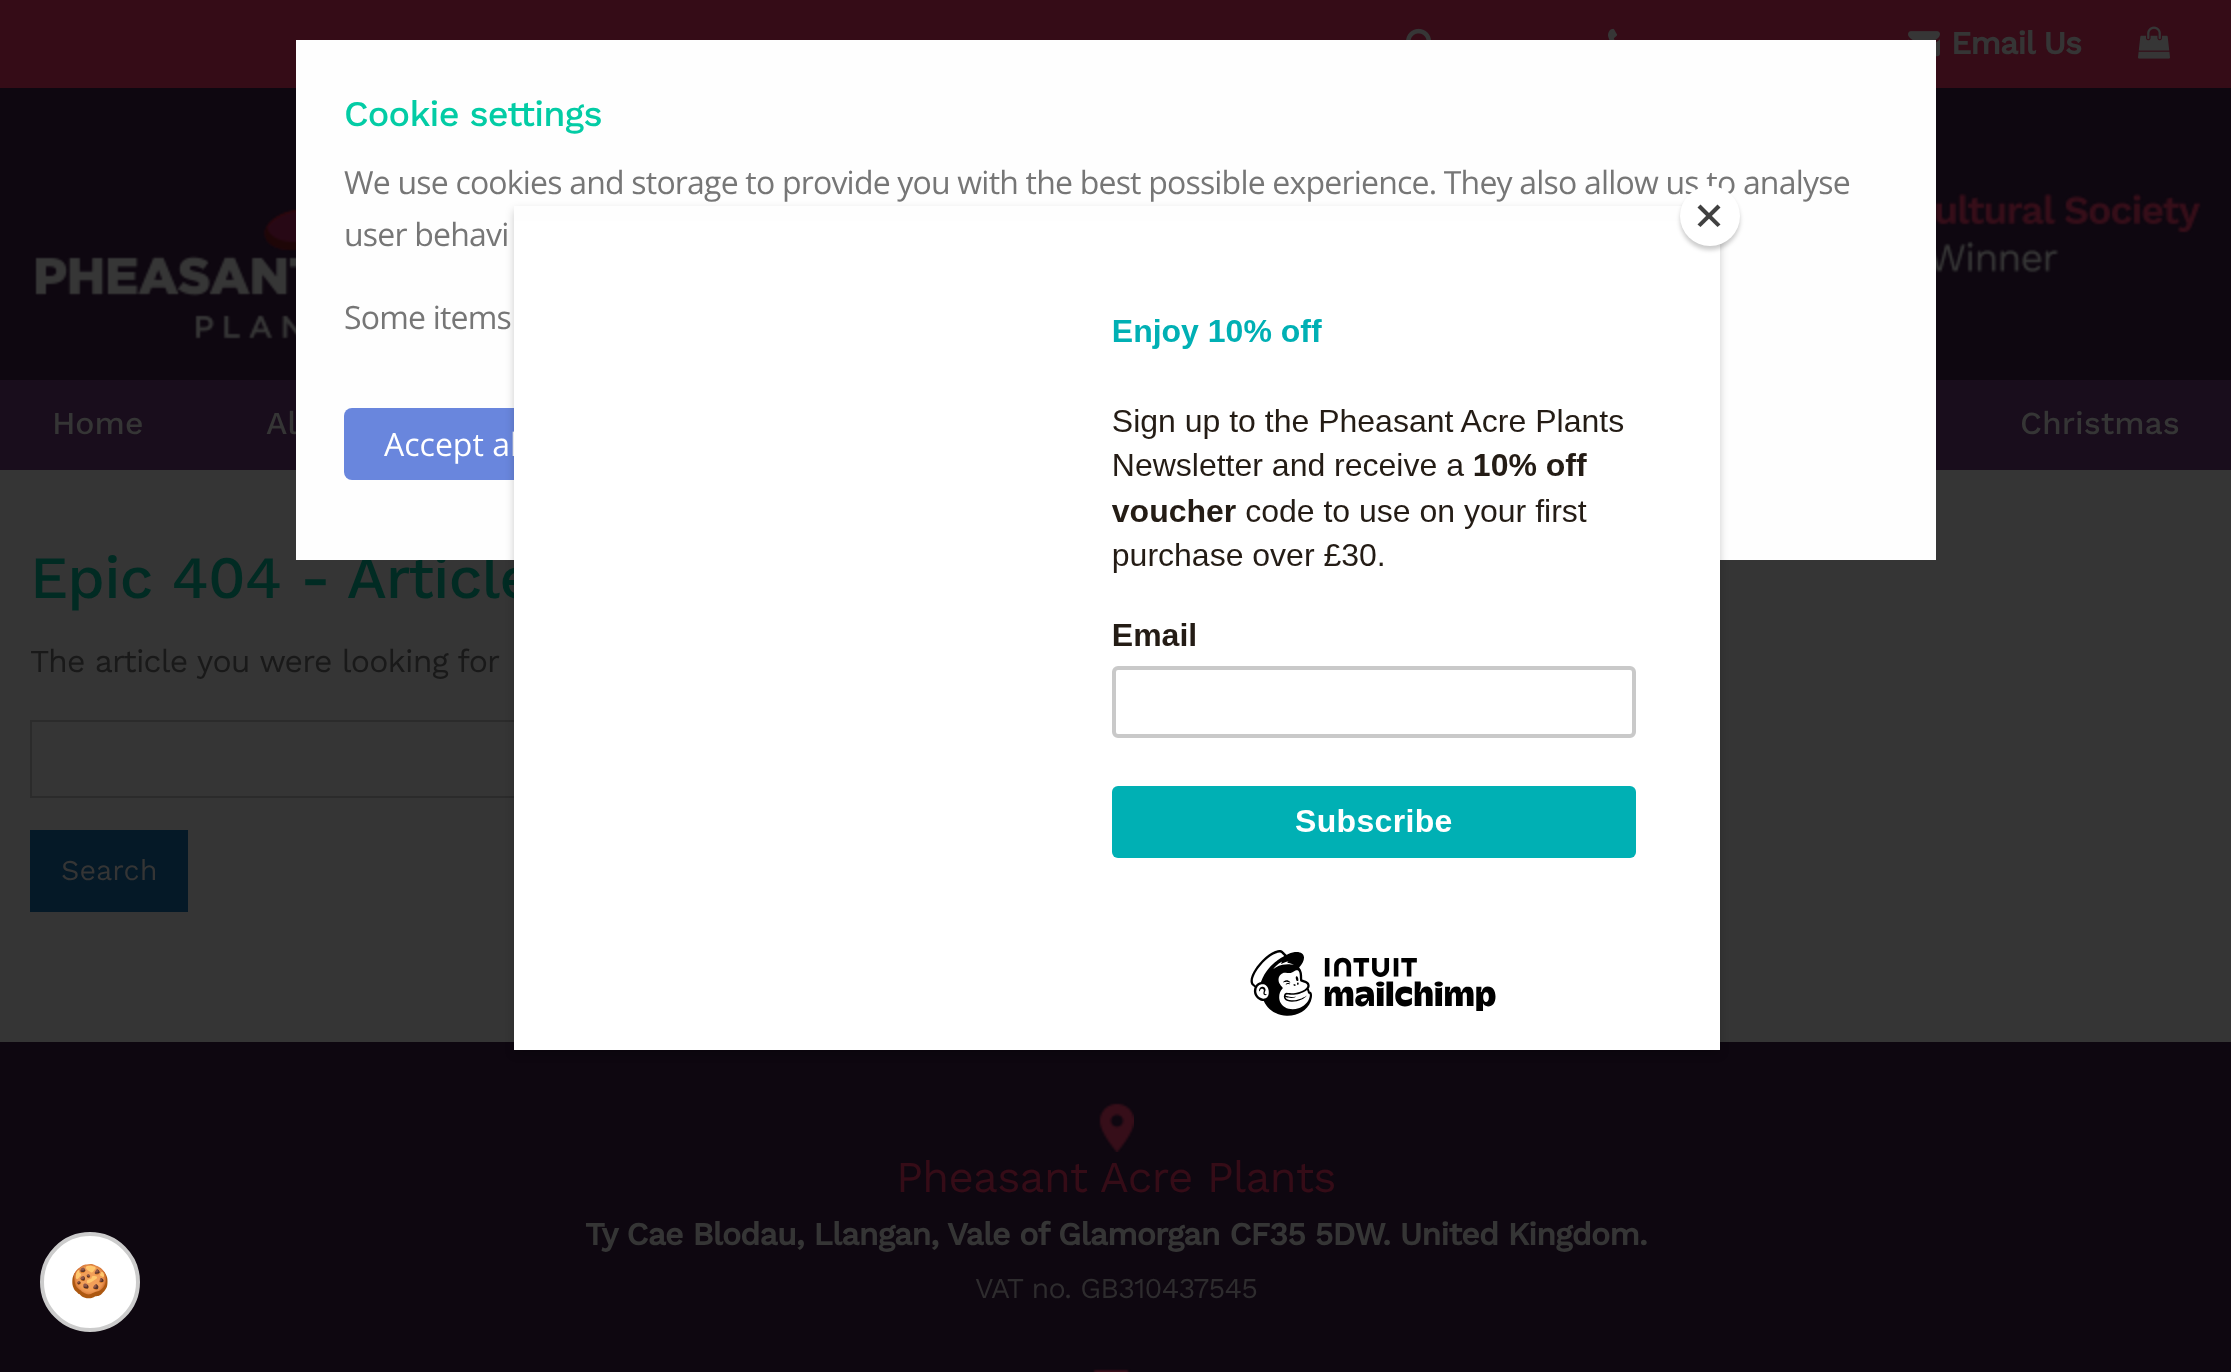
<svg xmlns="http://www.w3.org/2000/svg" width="2231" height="1372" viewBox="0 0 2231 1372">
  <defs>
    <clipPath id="clip1"><path d="M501 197H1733V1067H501ZM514 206H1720V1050H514Z" clip-rule="evenodd"/></clipPath>
  </defs>
  <rect width="100%" height="100%" fill="rgb(53,53,53)"/>
  <rect x="0" y="0" width="2231" height="88" fill="rgb(53,12,23)"/>
  <image x="1406" y="28" width="25" height="12" href="pic1.png"/>
  <image x="1608" y="28" width="10" height="12" href="pic2.png"/>
  <image x="1908" y="31" width="32" height="26" href="pic3.png"/>
  <text x="1951" y="54" font-family="Work Sans" font-size="32" font-weight="bold" letter-spacing="-0.8" fill="rgb(53,53,53)">Email Us</text>
  <image x="2138" y="26" width="32" height="33" href="pic4.png"/>
  <rect x="0" y="88" width="2231" height="292" fill="rgb(14,7,16)"/>
  <image x="35" y="209" width="261" height="130" href="pic5.png"/>
  <image x="1936" y="193" width="265" height="80" href="pic6.png"/>
  <rect x="0" y="380" width="2231" height="90" fill="rgb(25,13,28)"/>
  <g font-family="Work Sans" font-size="32" font-weight="500" fill="rgb(53,53,53)">
    <text x="52" y="434">Home</text>
    <text x="266" y="434">Al</text>
    <text x="2020" y="434">Christmas</text>
  </g>
  <text x="30" y="598" font-family="Work Sans" font-size="60" font-weight="500" letter-spacing="-0.8" fill="rgb(1,43,35)">Epic 404 - Article</text>
  <text x="30" y="672" font-family="Work Sans" font-size="32" letter-spacing="-0.8" fill="rgb(25,25,25)">The article you were looking for</text>
  <rect x="31" y="721" width="1426" height="76" fill="none" stroke="rgb(43,43,43)" stroke-width="2"/>
  <rect x="30" y="830" width="158" height="82" fill="rgb(5,25,39)"/>
  <text x="61" y="880" font-family="Work Sans" font-size="28.75" fill="rgb(53,53,53)">Search</text>
  <rect x="0" y="1042" width="2231" height="330" fill="rgb(14,7,16)"/>
  <image x="1099" y="1103" width="35" height="49" href="pic7.png"/>
  <text x="896" y="1192" font-family="Work Sans" font-size="44" letter-spacing="-0.8" fill="rgb(53,12,23)">Pheasant Acre Plants</text>
  <text x="585" y="1245" font-family="Work Sans" font-size="32" font-weight="bold" letter-spacing="-0.8" fill="rgb(53,53,53)">Ty Cae Blodau, Llangan, Vale of Glamorgan CF35 5DW. United Kingdom.</text>
  <text x="975" y="1298" font-family="Work Sans" font-size="28.75" letter-spacing="-0.8" fill="rgb(46,44,46)">VAT no. GB310437545</text>
  <image x="1093" y="1369" width="38" height="3" href="pic8.png"/>
  <rect x="296" y="40" width="1640" height="520" fill="rgb(254,254,254)"/>
  <text x="344" y="126" font-family="Work Sans" font-size="36" font-weight="500" letter-spacing="-0.8" fill="rgb(3,204,165)">Cookie settings</text>
  <g font-family="Open Sans" font-size="32" letter-spacing="-0.8" fill="rgb(118,118,118)">
    <text>
      <tspan x="344" y="194">We use cookies and storage to provide you with the best possible experience. They also allow us to analyse</tspan>
      <tspan x="344" y="246">user behavi</tspan>
    </text>
    <text x="344" y="329">Some items</text>
  </g>
  <rect x="344" y="408" width="222" height="72" rx="8" fill="rgb(105,134,221)"/>
  <text x="384" y="456" font-family="Open Sans" font-size="32" fill="rgb(255,255,255)">Accept al</text>
  <g clip-path="url(#clip1)">
    <rect x="514" y="210" width="1206" height="844" fill="rgba(0,0,0,0.2)" filter="blur(4px)"/>
  </g>
  <image x="514" y="221" width="1206" height="829" href="pic9.png"/>
  <rect x="1680" y="190" width="60" height="60" rx="30" fill="rgba(0,0,0,0.2)" filter="blur(2px)"/>
  <circle cx="1710" cy="216" r="30" fill="rgb(255,255,255)"/>
  <path d="M1717.5 204.5L1720.5 207.5L1700.5 227L1697.5 224.5Z" fill="rgb(65,65,65)"/>
  <path d="M1697.5 207.5L1700.5 204.5L1720.5 224.5L1717.5 227Z" fill="rgb(65,65,65)"/>
  <circle cx="90" cy="1282" r="48" fill="rgb(255,255,255)" stroke="rgb(204,204,204)" stroke-width="4"/>
  <text x="70" y="1292" font-family="Noto Color Emoji" font-size="32" fill="rgb(0,0,0)">🍪</text>
</svg>
